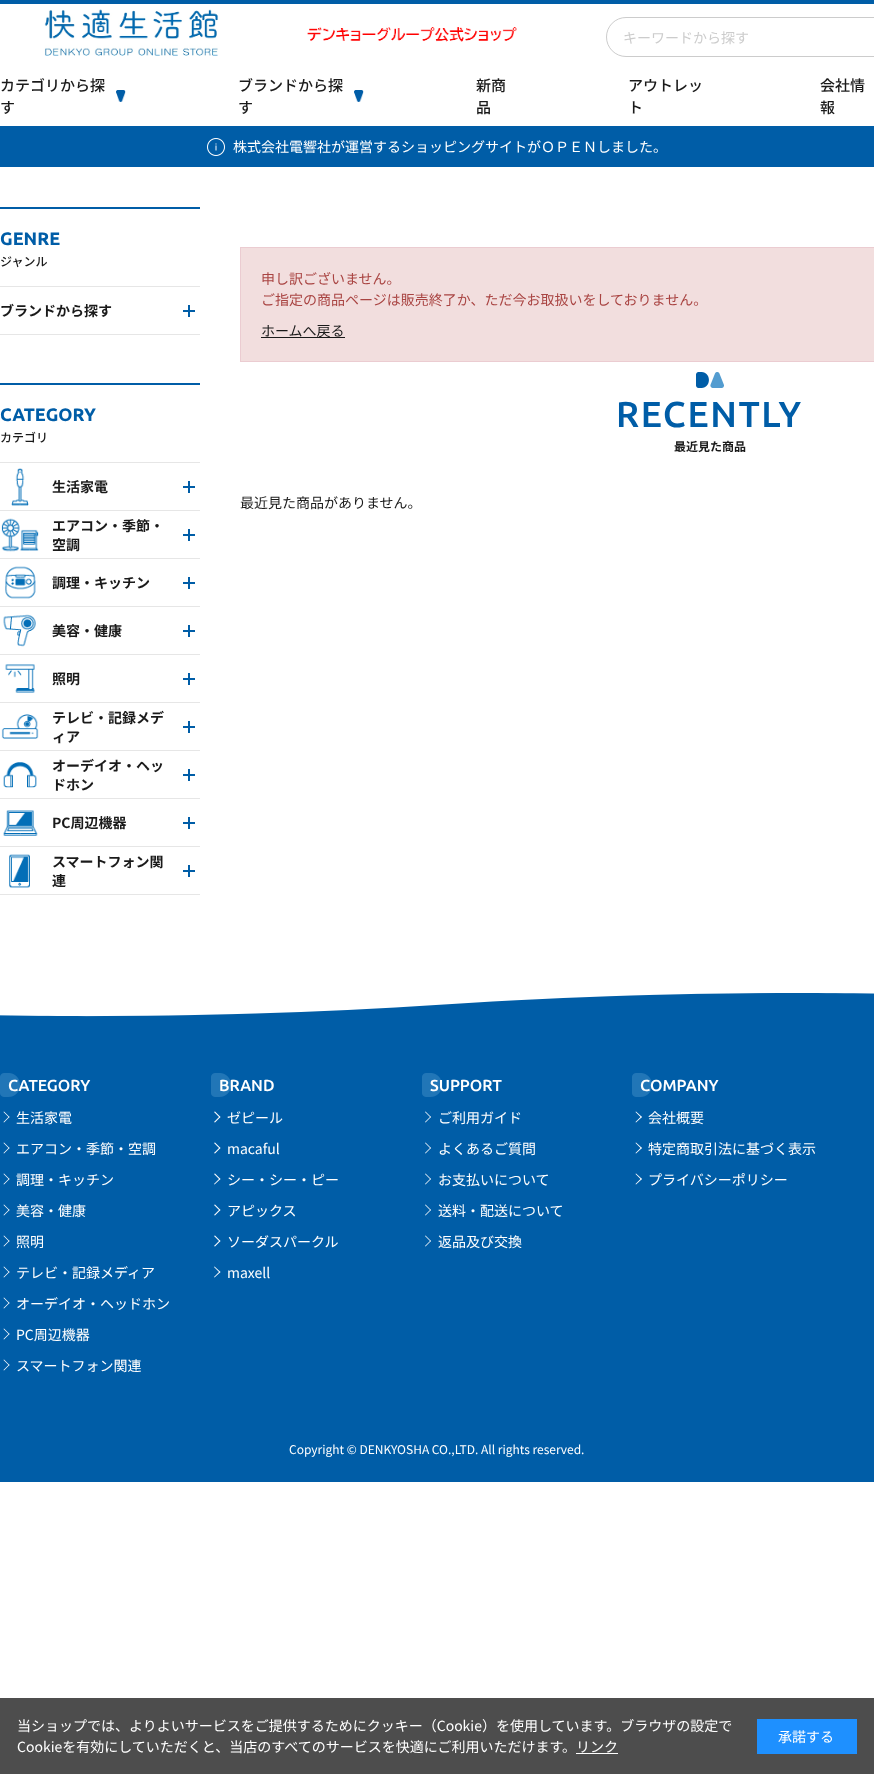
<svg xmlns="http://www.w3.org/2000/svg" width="874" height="1774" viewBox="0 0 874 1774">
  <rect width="100%" height="100%" fill="rgb(255,255,255)"/>
  <rect x="0" y="0" width="874" height="4" fill="rgb(0,93,167)"/>
  <image x="44" y="9" width="473" height="47" href="pic1.png"/>
  <rect x="606.5" y="17.5" width="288" height="39" rx="19.5" fill="none" stroke="rgb(204,204,204)"/>
  <text x="623" y="43" font-family="Noto Sans JP" font-size="14" fill="rgb(204,204,204)">キーワードから探す</text>
  <text x="0" y="91" font-family="Noto Sans JP" font-size="15" font-weight="500" fill="rgb(26,26,26)">カテゴリから探</text>
  <image x="116" y="90" width="10" height="12" href="pic2.png"/>
  <g font-family="Noto Sans JP" font-size="15" font-weight="500" fill="rgb(26,26,26)">
    <text x="0" y="113">す</text>
    <text x="238" y="91">ブランドから探</text>
  </g>
  <image x="354" y="90" width="10" height="12" href="pic3.png"/>
  <g font-family="Noto Sans JP" font-size="15" font-weight="500" fill="rgb(26,26,26)">
    <text x="238" y="113">す</text>
    <text>
      <tspan x="476" y="91">新商</tspan>
      <tspan x="476" y="113">品</tspan>
    </text>
    <text>
      <tspan x="628" y="91">アウトレッ</tspan>
      <tspan x="628" y="113">ト</tspan>
    </text>
    <text>
      <tspan x="820" y="91">会社情</tspan>
      <tspan x="820" y="113">報</tspan>
    </text>
  </g>
  <rect x="0" y="126" width="874" height="41" fill="rgb(0,93,167)"/>
  <image x="207" y="138" width="18" height="18" href="pic4.png"/>
  <text x="233" y="152" font-family="Noto Sans JP" font-size="14" fill="rgb(255,255,255)">株式会社電響社が運営するショッピングサイトがＯＰＥＮしました。</text>
  <rect x="0" y="207" width="200" height="2" fill="rgb(0,93,167)"/>
  <text x="0" y="245" font-family="Ubuntu" font-size="18" font-weight="bold" fill="rgb(0,93,167)">GENRE</text>
  <text x="0" y="266" font-family="Noto Sans JP" font-size="12" font-weight="500" fill="rgb(26,26,26)">ジャンル</text>
  <rect x="0" y="334" width="200" height="1" fill="rgb(230,230,230)"/>
  <rect x="0" y="286" width="200" height="1" fill="rgb(230,230,230)"/>
  <text x="0" y="316" font-family="Noto Sans JP" font-size="14" font-weight="bold" fill="rgb(26,26,26)">ブランドから探す</text>
  <rect x="183" y="310" width="12" height="2" fill="rgb(0,93,167)"/>
  <rect x="188" y="305" width="2" height="12" fill="rgb(0,93,167)"/>
  <rect x="0" y="383" width="200" height="2" fill="rgb(0,93,167)"/>
  <text x="0" y="421" font-family="Ubuntu" font-size="18" font-weight="bold" fill="rgb(0,93,167)">CATEGORY</text>
  <text x="0" y="442" font-family="Noto Sans JP" font-size="12" font-weight="500" fill="rgb(26,26,26)">カテゴリ</text>
  <rect x="0" y="894" width="200" height="1" fill="rgb(230,230,230)"/>
  <rect x="0" y="462" width="200" height="1" fill="rgb(230,230,230)"/>
  <image x="11" y="468" width="18" height="38" href="pic5.png"/>
  <text x="52" y="492" font-family="Noto Sans JP" font-size="14" font-weight="bold" fill="rgb(26,26,26)">生活家電</text>
  <rect x="183" y="486" width="12" height="2" fill="rgb(0,93,167)"/>
  <rect x="188" y="481" width="2" height="12" fill="rgb(0,93,167)"/>
  <rect x="0" y="510" width="200" height="1" fill="rgb(230,230,230)"/>
  <image x="1" y="518" width="38" height="34" href="pic6.png"/>
  <g font-family="Noto Sans JP" font-size="14" font-weight="bold" fill="rgb(26,26,26)">
    <text>
      <tspan x="52" y="531">エアコン・季節・</tspan>
      <tspan x="52" y="550">空調</tspan>
    </text>
  </g>
  <rect x="183" y="534" width="12" height="2" fill="rgb(0,93,167)"/>
  <rect x="188" y="529" width="2" height="12" fill="rgb(0,93,167)"/>
  <rect x="0" y="558" width="200" height="1" fill="rgb(230,230,230)"/>
  <image x="5" y="566" width="31" height="33" href="pic7.png"/>
  <text x="52" y="588" font-family="Noto Sans JP" font-size="14" font-weight="bold" fill="rgb(26,26,26)">調理・キッチン</text>
  <rect x="183" y="582" width="12" height="2" fill="rgb(0,93,167)"/>
  <rect x="188" y="577" width="2" height="12" fill="rgb(0,93,167)"/>
  <rect x="0" y="606" width="200" height="1" fill="rgb(230,230,230)"/>
  <image x="3" y="614" width="33" height="33" href="pic8.png"/>
  <text x="52" y="636" font-family="Noto Sans JP" font-size="14" font-weight="bold" fill="rgb(26,26,26)">美容・健康</text>
  <rect x="183" y="630" width="12" height="2" fill="rgb(0,93,167)"/>
  <rect x="188" y="625" width="2" height="12" fill="rgb(0,93,167)"/>
  <rect x="0" y="654" width="200" height="1" fill="rgb(230,230,230)"/>
  <image x="5" y="664" width="30" height="29" href="pic9.png"/>
  <text x="52" y="684" font-family="Noto Sans JP" font-size="14" font-weight="bold" fill="rgb(26,26,26)">照明</text>
  <rect x="183" y="678" width="12" height="2" fill="rgb(0,93,167)"/>
  <rect x="188" y="673" width="2" height="12" fill="rgb(0,93,167)"/>
  <rect x="0" y="702" width="200" height="1" fill="rgb(230,230,230)"/>
  <image x="1" y="714" width="38" height="25" href="pic10.png"/>
  <g font-family="Noto Sans JP" font-size="14" font-weight="bold" fill="rgb(26,26,26)">
    <text>
      <tspan x="52" y="723">テレビ・記録メデ</tspan>
      <tspan x="52" y="742">ィア</tspan>
    </text>
  </g>
  <rect x="183" y="726" width="12" height="2" fill="rgb(0,93,167)"/>
  <rect x="188" y="721" width="2" height="12" fill="rgb(0,93,167)"/>
  <rect x="0" y="750" width="200" height="1" fill="rgb(230,230,230)"/>
  <image x="3" y="762" width="34" height="26" href="pic11.png"/>
  <g font-family="Noto Sans JP" font-size="14" font-weight="bold" fill="rgb(26,26,26)">
    <text>
      <tspan x="52" y="771">オーデイオ・ヘッ</tspan>
      <tspan x="52" y="790">ドホン</tspan>
    </text>
  </g>
  <rect x="183" y="774" width="12" height="2" fill="rgb(0,93,167)"/>
  <rect x="188" y="769" width="2" height="12" fill="rgb(0,93,167)"/>
  <rect x="0" y="798" width="200" height="1" fill="rgb(230,230,230)"/>
  <image x="3" y="810" width="35" height="26" href="pic12.png"/>
  <text x="52" y="828" font-family="Noto Sans JP" font-size="14" font-weight="bold" fill="rgb(26,26,26)">PC周辺機器</text>
  <rect x="183" y="822" width="12" height="2" fill="rgb(0,93,167)"/>
  <rect x="188" y="817" width="2" height="12" fill="rgb(0,93,167)"/>
  <rect x="0" y="846" width="200" height="1" fill="rgb(230,230,230)"/>
  <image x="9" y="854" width="21" height="34" href="pic13.png"/>
  <g font-family="Noto Sans JP" font-size="14" font-weight="bold" fill="rgb(26,26,26)">
    <text>
      <tspan x="52" y="867">スマートフォン関</tspan>
      <tspan x="52" y="886">連</tspan>
    </text>
  </g>
  <rect x="183" y="870" width="12" height="2" fill="rgb(0,93,167)"/>
  <rect x="188" y="865" width="2" height="12" fill="rgb(0,93,167)"/>
  <rect x="240.5" y="247.5" width="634" height="114" fill="rgb(242,222,222)" stroke="rgb(235,204,209)"/>
  <g font-family="Noto Sans JP" font-size="14" fill="rgb(169,68,66)">
    <text>
      <tspan x="261" y="284">申し訳ございません。</tspan>
      <tspan x="261" y="305">ご指定の商品ページは販売終了か、ただ今お取扱いをしておりません。</tspan>
    </text>
  </g>
  <rect x="261" y="337" width="84" height="1" fill="rgb(26,26,26)"/>
  <text x="261" y="336" font-family="Noto Sans JP" font-size="14" fill="rgb(26,26,26)">ホームへ戻る</text>
  <image x="696" y="372" width="28" height="16" href="pic14.png"/>
  <text x="616" y="427" font-family="Ubuntu" font-size="36" font-weight="500" letter-spacing="1.75" fill="rgb(0,93,167)">RECENTLY</text>
  <text x="674" y="451" font-family="Noto Sans JP" font-size="12" font-weight="bold" fill="rgb(26,26,26)">最近見た商品</text>
  <text x="240" y="508" font-family="Noto Sans JP" font-size="14" fill="rgb(26,26,26)">最近見た商品がありません。</text>
  <rect x="0" y="1017" width="874" height="465" fill="rgb(0,93,167)"/>
  <image x="0" y="993" width="874" height="24" href="pic15.png"/>
  <image x="0" y="1073" width="20" height="24" href="pic16.png"/>
  <text x="8" y="1091" font-family="Ubuntu" font-size="16" font-weight="500" fill="rgb(255,255,255)">CATEGORY</text>
  <path d="M4 1111.5L9.5 1117L9 1117.5L3.5 1112Z" fill="rgb(255,255,255)"/>
  <path d="M9 1116.5L9.5 1117L4 1122.5L3.5 1122Z" fill="rgb(255,255,255)"/>
  <text x="16" y="1123" font-family="Noto Sans JP" font-size="14" fill="rgb(255,255,255)">生活家電</text>
  <path d="M4 1142.5L9.5 1148L9 1148.5L3.5 1143Z" fill="rgb(255,255,255)"/>
  <path d="M9 1147.5L9.5 1148L4 1153.5L3.5 1153Z" fill="rgb(255,255,255)"/>
  <text x="16" y="1154" font-family="Noto Sans JP" font-size="14" fill="rgb(255,255,255)">エアコン・季節・空調</text>
  <path d="M4 1173.5L9.5 1179L9 1179.5L3.5 1174Z" fill="rgb(255,255,255)"/>
  <path d="M9 1178.5L9.5 1179L4 1184.5L3.5 1184Z" fill="rgb(255,255,255)"/>
  <text x="16" y="1185" font-family="Noto Sans JP" font-size="14" fill="rgb(255,255,255)">調理・キッチン</text>
  <path d="M4 1204.5L9.5 1210L9 1210.5L3.5 1205Z" fill="rgb(255,255,255)"/>
  <path d="M9 1209.5L9.5 1210L4 1215.5L3.5 1215Z" fill="rgb(255,255,255)"/>
  <text x="16" y="1216" font-family="Noto Sans JP" font-size="14" fill="rgb(255,255,255)">美容・健康</text>
  <path d="M4 1235.5L9.5 1241L9 1241.5L3.5 1236Z" fill="rgb(255,255,255)"/>
  <path d="M9 1240.5L9.5 1241L4 1246.5L3.5 1246Z" fill="rgb(255,255,255)"/>
  <text x="16" y="1247" font-family="Noto Sans JP" font-size="14" fill="rgb(255,255,255)">照明</text>
  <path d="M4 1266.5L9.5 1272L9 1272.5L3.5 1267Z" fill="rgb(255,255,255)"/>
  <path d="M9 1271.5L9.5 1272L4 1277.5L3.5 1277Z" fill="rgb(255,255,255)"/>
  <text x="16" y="1278" font-family="Noto Sans JP" font-size="14" fill="rgb(255,255,255)">テレビ・記録メディア</text>
  <path d="M4 1297.5L9.5 1303L9 1303.5L3.5 1298Z" fill="rgb(255,255,255)"/>
  <path d="M9 1302.5L9.5 1303L4 1308.5L3.5 1308Z" fill="rgb(255,255,255)"/>
  <text x="16" y="1309" font-family="Noto Sans JP" font-size="14" fill="rgb(255,255,255)">オーデイオ・ヘッドホン</text>
  <path d="M4 1328.5L9.5 1334L9 1334.5L3.5 1329Z" fill="rgb(255,255,255)"/>
  <path d="M9 1333.5L9.5 1334L4 1339.5L3.5 1339Z" fill="rgb(255,255,255)"/>
  <text x="16" y="1340" font-family="Noto Sans JP" font-size="14" fill="rgb(255,255,255)">PC周辺機器</text>
  <path d="M4 1359.5L9.5 1365L9 1365.5L3.5 1360Z" fill="rgb(255,255,255)"/>
  <path d="M9 1364.5L9.5 1365L4 1370.5L3.5 1370Z" fill="rgb(255,255,255)"/>
  <text x="16" y="1371" font-family="Noto Sans JP" font-size="14" fill="rgb(255,255,255)">スマートフォン関連</text>
  <image x="211" y="1073" width="20" height="24" href="pic16.png"/>
  <text x="219" y="1091" font-family="Ubuntu" font-size="16" font-weight="500" fill="rgb(255,255,255)">BRAND</text>
  <path d="M215 1111.5L220.5 1117L219.5 1117.5L214 1112Z" fill="rgb(255,255,255)"/>
  <path d="M219.5 1116.5L220.5 1117L215 1122.5L214 1122Z" fill="rgb(255,255,255)"/>
  <text x="227" y="1123" font-family="Noto Sans JP" font-size="14" fill="rgb(255,255,255)">ゼピール</text>
  <path d="M215 1142.5L220.5 1148L219.5 1148.5L214 1143Z" fill="rgb(255,255,255)"/>
  <path d="M219.5 1147.5L220.5 1148L215 1153.5L214 1153Z" fill="rgb(255,255,255)"/>
  <text x="227" y="1154" font-family="Noto Sans JP" font-size="14" fill="rgb(255,255,255)">macaful</text>
  <path d="M215 1173.5L220.5 1179L219.5 1179.5L214 1174Z" fill="rgb(255,255,255)"/>
  <path d="M219.5 1178.5L220.5 1179L214.5 1184.5L214 1184Z" fill="rgb(255,255,255)"/>
  <text x="227" y="1185" font-family="Noto Sans JP" font-size="14" fill="rgb(255,255,255)">シー・シー・ピー</text>
  <path d="M215 1204.5L220.5 1210L219.5 1210.5L214 1205Z" fill="rgb(255,255,255)"/>
  <path d="M219.5 1209.5L220.5 1210L215 1215.5L214 1215Z" fill="rgb(255,255,255)"/>
  <text x="227" y="1216" font-family="Noto Sans JP" font-size="14" fill="rgb(255,255,255)">アピックス</text>
  <path d="M215 1235.5L220.5 1241L219.5 1241.5L214 1236Z" fill="rgb(255,255,255)"/>
  <path d="M219.5 1240.5L220.5 1241L215 1246.5L214 1246Z" fill="rgb(255,255,255)"/>
  <text x="227" y="1247" font-family="Noto Sans JP" font-size="14" fill="rgb(255,255,255)">ソーダスパークル</text>
  <path d="M214.5 1266.5L220.5 1272L219.5 1272.5L214 1267Z" fill="rgb(255,255,255)"/>
  <path d="M219.5 1271.5L220.5 1272L214.5 1277.5L214 1277Z" fill="rgb(255,255,255)"/>
  <text x="227" y="1278" font-family="Noto Sans JP" font-size="14" fill="rgb(255,255,255)">maxell</text>
  <image x="422" y="1073" width="20" height="24" href="pic16.png"/>
  <text x="430" y="1091" font-family="Ubuntu" font-size="16" font-weight="500" fill="rgb(255,255,255)">SUPPORT</text>
  <path d="M425.5 1111.5L431 1117L430.5 1117.5L425 1112Z" fill="rgb(255,255,255)"/>
  <path d="M430.5 1116.5L431 1117L425.5 1122.5L425 1122Z" fill="rgb(255,255,255)"/>
  <text x="438" y="1123" font-family="Noto Sans JP" font-size="14" fill="rgb(255,255,255)">ご利用ガイド</text>
  <path d="M425.5 1142.5L431 1148L430.5 1148.5L425 1143Z" fill="rgb(255,255,255)"/>
  <path d="M430.5 1147.5L431 1148L425.5 1153.5L425 1153Z" fill="rgb(255,255,255)"/>
  <text x="438" y="1154" font-family="Noto Sans JP" font-size="14" fill="rgb(255,255,255)">よくあるご質問</text>
  <path d="M425.5 1173.5L431 1179L430.5 1179.5L425 1174Z" fill="rgb(255,255,255)"/>
  <path d="M430.5 1178.5L431 1179L425.5 1184.5L425 1184Z" fill="rgb(255,255,255)"/>
  <text x="438" y="1185" font-family="Noto Sans JP" font-size="14" fill="rgb(255,255,255)">お支払いについて</text>
  <path d="M425.5 1204.5L431 1210L430.5 1210.5L425 1205Z" fill="rgb(255,255,255)"/>
  <path d="M430.5 1209.5L431 1210L425.5 1215.5L425 1215Z" fill="rgb(255,255,255)"/>
  <text x="438" y="1216" font-family="Noto Sans JP" font-size="14" fill="rgb(255,255,255)">送料・配送について</text>
  <path d="M425.5 1235.5L431 1241L430.5 1241.5L425 1236Z" fill="rgb(255,255,255)"/>
  <path d="M430.5 1240.5L431 1241L425.5 1246.5L425 1246Z" fill="rgb(255,255,255)"/>
  <text x="438" y="1247" font-family="Noto Sans JP" font-size="14" fill="rgb(255,255,255)">返品及び交換</text>
  <image x="632" y="1073" width="20" height="24" href="pic16.png"/>
  <text x="640" y="1091" font-family="Ubuntu" font-size="16" font-weight="500" fill="rgb(255,255,255)">COMPANY</text>
  <path d="M636 1111.5L642 1117L641 1117.5L635.5 1112Z" fill="rgb(255,255,255)"/>
  <path d="M641 1116.5L642 1117L636 1122.5L635.5 1122Z" fill="rgb(255,255,255)"/>
  <text x="648" y="1123" font-family="Noto Sans JP" font-size="14" fill="rgb(255,255,255)">会社概要</text>
  <path d="M636 1142.5L642 1148L641 1148.5L635.5 1143Z" fill="rgb(255,255,255)"/>
  <path d="M641 1147.5L642 1148L636 1153.5L635.5 1153Z" fill="rgb(255,255,255)"/>
  <text x="648" y="1154" font-family="Noto Sans JP" font-size="14" fill="rgb(255,255,255)">特定商取引法に基づく表示</text>
  <path d="M636 1173.5L642 1179L641 1179.5L635.5 1174Z" fill="rgb(255,255,255)"/>
  <path d="M641 1178.5L642 1179L636 1184.5L635.5 1184Z" fill="rgb(255,255,255)"/>
  <text x="648" y="1185" font-family="Noto Sans JP" font-size="14" fill="rgb(255,255,255)">プライバシーポリシー</text>
  <text x="289" y="1454" font-family="Noto Sans JP" font-size="12" fill="rgb(255,255,255)">Copyright © DENKYOSHA CO.,LTD. All rights reserved.</text>
  <rect x="0" y="1698" width="874" height="76" fill="rgb(77,77,77)"/>
  <g font-family="Noto Sans JP" font-size="14" fill="rgb(255,255,255)">
    <text>
      <tspan x="17" y="1731">当ショップでは、よりよいサービスをご提供するためにクッキー（Cookie）を使用しています。ブラウザの設定で</tspan>
      <tspan x="17" y="1752">Cookieを有効にしていただくと、当店のすべてのサービスを快適にご利用いただけます。リンク</tspan>
    </text>
  </g>
  <rect x="576" y="1753" width="42" height="1" fill="rgb(255,255,255)"/>
  <rect x="757" y="1719" width="100" height="35" fill="rgb(30,144,255)"/>
  <text x="778" y="1742" font-family="Noto Sans JP" font-size="14" fill="rgb(255,255,255)">承諾する</text>
</svg>
